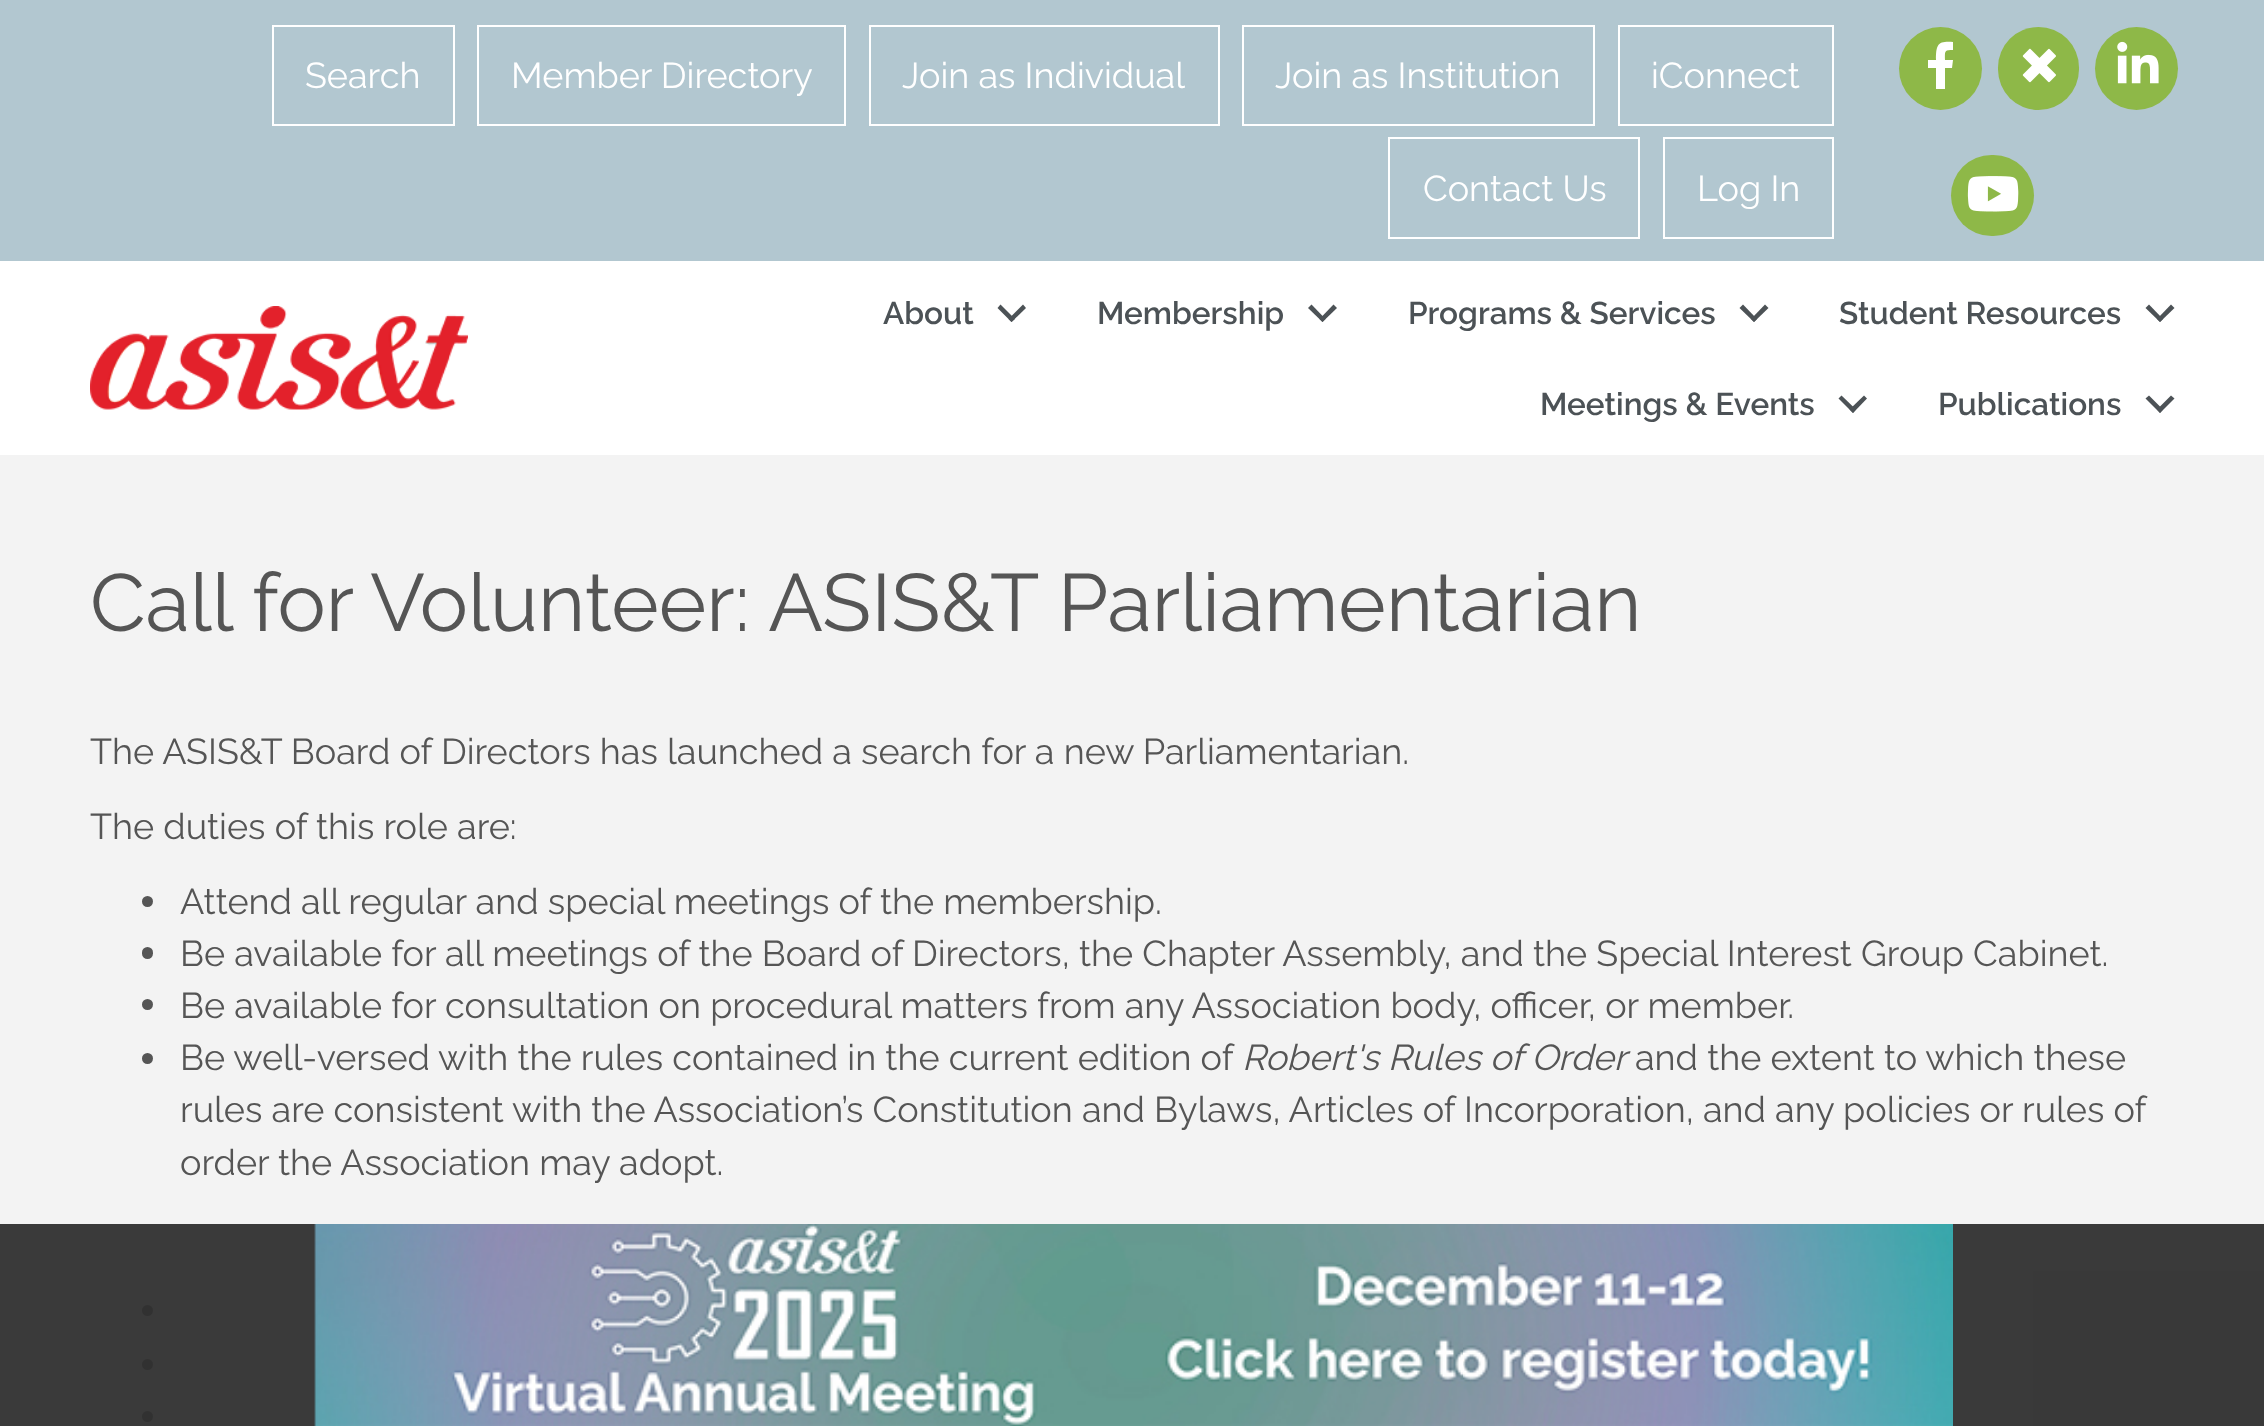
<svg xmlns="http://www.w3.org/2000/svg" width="2264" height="1426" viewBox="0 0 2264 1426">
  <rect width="100%" height="100%" fill="rgb(178,199,208)"/>
  <rect x="273" y="26" width="181" height="99" fill="none" stroke="rgb(255,255,255)" stroke-width="2"/>
  <text x="305" y="88" font-family="Raleway" font-size="36" fill="rgb(255,255,255)">Search</text>
  <rect x="478" y="26" width="367" height="99" fill="none" stroke="rgb(255,255,255)" stroke-width="2"/>
  <text x="511" y="88" font-family="Raleway" font-size="36" fill="rgb(255,255,255)">Member Directory</text>
  <rect x="870" y="26" width="349" height="99" fill="none" stroke="rgb(255,255,255)" stroke-width="2"/>
  <text x="902" y="88" font-family="Raleway" font-size="36" fill="rgb(255,255,255)">Join as Individual</text>
  <rect x="1243" y="26" width="351" height="99" fill="none" stroke="rgb(255,255,255)" stroke-width="2"/>
  <text x="1275" y="88" font-family="Raleway" font-size="36" fill="rgb(255,255,255)">Join as Institution</text>
  <rect x="1619" y="26" width="214" height="99" fill="none" stroke="rgb(255,255,255)" stroke-width="2"/>
  <text x="1651" y="88" font-family="Raleway" font-size="36" fill="rgb(255,255,255)">iConnect</text>
  <rect x="1389" y="138" width="250" height="100" fill="none" stroke="rgb(255,255,255)" stroke-width="2"/>
  <text x="1423" y="201" font-family="Raleway" font-size="36" fill="rgb(255,255,255)">Contact Us</text>
  <rect x="1664" y="138" width="169" height="100" fill="none" stroke="rgb(255,255,255)" stroke-width="2"/>
  <text x="1697" y="201" font-family="Raleway" font-size="36" fill="rgb(255,255,255)">Log In</text>
  <circle cx="1940.5" cy="68.5" r="41.5" fill="rgb(142,184,72)"/>
  <path d="M1952 68H1945V89H1936V68H1928V60H1936C1936 44 1938 41 1953 42V50C1944 50 1945 51 1945 60H1953Z" fill="rgb(255,255,255)"/>
  <rect x="1998" y="27" width="81" height="83" rx="40.5" fill="rgb(142,184,72)"/>
  <image x="2022" y="48" width="34" height="35" href="pic1.png"/>
  <circle cx="2136.5" cy="68.5" r="41.5" fill="rgb(142,184,72)"/>
  <image x="2117" y="41" width="42" height="43" href="pic2.png"/>
  <rect x="1951" y="155" width="83" height="81" rx="40.5" fill="rgb(142,184,72)"/>
  <image x="1967" y="176" width="52" height="36" href="pic3.png"/>
  <rect x="0" y="261" width="2264" height="194" fill="rgb(255,255,255)"/>
  <image x="90" y="306" width="378" height="104" href="pic4.png"/>
  <text x="883" y="324" font-family="Raleway" font-size="31.5" font-weight="600" fill="rgb(76,82,86)">About</text>
  <path d="M1023 304.5L1026 308L1011.5 322L1008.5 319Z" fill="rgb(76,82,86)"/>
  <path d="M1000.5 304.5L1015 319L1011.5 322L997.5 308Z" fill="rgb(76,82,86)"/>
  <text x="1097" y="324" font-family="Raleway" font-size="31.5" font-weight="600" fill="rgb(76,82,86)">Membership</text>
  <path d="M1333.5 304.5L1337 308L1322.5 322L1319.5 319Z" fill="rgb(76,82,86)"/>
  <path d="M1311.5 304.5L1325.5 319L1322.5 322L1308 308Z" fill="rgb(76,82,86)"/>
  <text x="1408" y="324" font-family="Raleway" font-size="31.5" font-weight="600" fill="rgb(76,82,86)">Programs &amp; Services</text>
  <path d="M1765 304.5L1768.5 308L1754 322L1751 319Z" fill="rgb(76,82,86)"/>
  <path d="M1743 304.5L1757 319L1754 322L1739.5 308Z" fill="rgb(76,82,86)"/>
  <text x="1839" y="324" font-family="Raleway" font-size="31.5" font-weight="600" fill="rgb(76,82,86)">Student Resources</text>
  <path d="M2171 304.5L2174.5 308L2160 322L2157 319Z" fill="rgb(76,82,86)"/>
  <path d="M2149 304.5L2163 319L2160 322L2145.5 308Z" fill="rgb(76,82,86)"/>
  <text x="1540" y="415" font-family="Raleway" font-size="31.5" font-weight="600" fill="rgb(76,82,86)">Meetings &amp; Events</text>
  <path d="M1864 395.5L1867 398.5L1853 413L1849.5 409.5Z" fill="rgb(76,82,86)"/>
  <path d="M1841.5 395.5L1856 409.5L1853 413L1838.5 398.5Z" fill="rgb(76,82,86)"/>
  <text x="1938" y="415" font-family="Raleway" font-size="31.5" font-weight="600" fill="rgb(76,82,86)">Publications</text>
  <path d="M2171 395.5L2174.5 398.5L2160 413L2157 409.5Z" fill="rgb(76,82,86)"/>
  <path d="M2149 395.5L2163 409.5L2160 413L2145.5 398.5Z" fill="rgb(76,82,86)"/>
  <rect x="0" y="455" width="2264" height="971" fill="rgb(243,243,243)"/>
  <text x="90" y="631" font-family="Raleway" font-size="81" fill="rgb(85,85,85)">Call for Volunteer: ASIS&amp;T Parliamentarian</text>
  <g font-family="Raleway" font-size="36" fill="rgb(85,85,85)">
    <text x="90" y="764">The ASIS&amp;T Board of Directors has launched a search for a new Parliamentarian.</text>
    <text x="90" y="839">The duties of this role are:</text>
  </g>
  <circle cx="147.5" cy="901.5" r="5.5" fill="rgb(85,85,85)"/>
  <text x="180" y="914" font-family="Raleway" font-size="36" fill="rgb(85,85,85)">Attend all regular and special meetings of the membership.</text>
  <rect x="142" y="947" width="11" height="12" rx="5.5" fill="rgb(85,85,85)"/>
  <text x="180" y="966" font-family="Raleway" font-size="36" fill="rgb(85,85,85)">Be available for all meetings of the Board of Directors, the Chapter Assembly, and the Special Interest Group Cabinet.</text>
  <circle cx="147.5" cy="1004.5" r="5.5" fill="rgb(85,85,85)"/>
  <text x="180" y="1018" font-family="Raleway" font-size="36" fill="rgb(85,85,85)">Be available for consultation on procedural matters from any Association body, officer, or member.</text>
  <circle cx="147.5" cy="1058.5" r="5.5" fill="rgb(85,85,85)"/>
  <text x="180" y="1070" font-family="Raleway" font-size="36" fill="rgb(85,85,85)">Be well-versed with the rules contained in the current edition of</text>
  <text x="1242" y="1070" font-family="Raleway" font-size="36" font-style="italic" fill="rgb(85,85,85)">Robert's Rules of Order</text>
  <g font-family="Raleway" font-size="36" fill="rgb(85,85,85)">
    <text x="1635" y="1070">and the extent to which these</text>
    <text>
      <tspan x="180" y="1122">rules are consistent with the Association’s Constitution and Bylaws, Articles of Incorporation, and any policies or rules of</tspan>
      <tspan x="180" y="1175">order the Association may adopt.</tspan>
    </text>
  </g>
  <circle cx="147.5" cy="1310.5" r="5.5" fill="rgb(85,85,85)"/>
  <circle cx="147.5" cy="1364.5" r="5.5" fill="rgb(85,85,85)"/>
  <circle cx="147.5" cy="1416.5" r="5.5" fill="rgb(85,85,85)"/>
  <rect x="0" y="1224" width="2264" height="202" fill="rgba(47,47,47,0.95)"/>
  <image x="314" y="1224" width="1639" height="202" href="pic5.png"/>
</svg>
